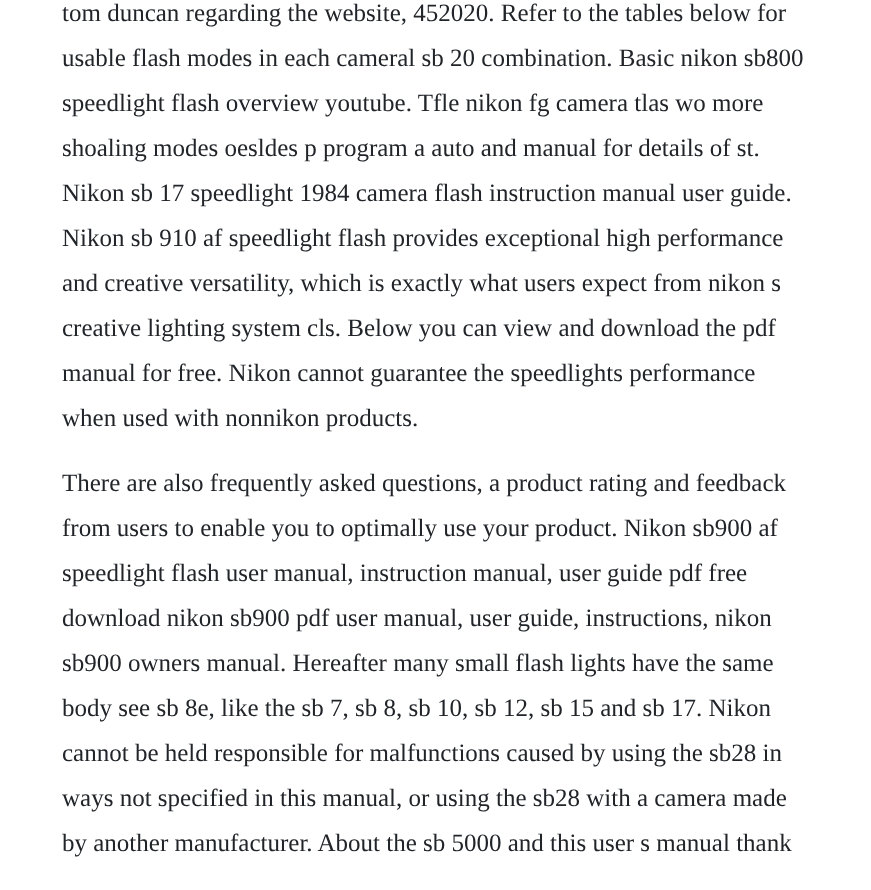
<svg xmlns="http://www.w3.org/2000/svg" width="871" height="890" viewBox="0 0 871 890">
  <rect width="100%" height="100%" fill="rgb(255,255,255)"/>
  <g font-family="Liberation Serif" font-size="25" fill="rgb(33,37,41)">
    <text>
      <tspan x="62" y="21">tom duncan regarding the website, 452020. Refer to the tables below for</tspan>
      <tspan x="62" y="66">usable flash modes in each cameral sb 20 combination. Basic nikon sb800</tspan>
      <tspan x="62" y="111">speedlight flash overview youtube. Tfle nikon fg camera tlas wo more</tspan>
      <tspan x="62" y="156">shoaling modes oesldes p program a auto and manual for details of st.</tspan>
      <tspan x="62" y="201">Nikon sb 17 speedlight 1984 camera flash instruction manual user guide.</tspan>
      <tspan x="62" y="246">Nikon sb 910 af speedlight flash provides exceptional high performance</tspan>
      <tspan x="62" y="291">and creative versatility, which is exactly what users expect from nikon s</tspan>
      <tspan x="62" y="336">creative lighting system cls. Below you can view and download the pdf</tspan>
      <tspan x="62" y="381">manual for free. Nikon cannot guarantee the speedlights performance</tspan>
      <tspan x="62" y="426">when used with nonnikon products.</tspan>
    </text>
    <text>
      <tspan x="62" y="491">There are also frequently asked questions, a product rating and feedback</tspan>
      <tspan x="62" y="536">from users to enable you to optimally use your product. Nikon sb900 af</tspan>
      <tspan x="62" y="581">speedlight flash user manual, instruction manual, user guide pdf free</tspan>
      <tspan x="62" y="626">download nikon sb900 pdf user manual, user guide, instructions, nikon</tspan>
      <tspan x="62" y="671">sb900 owners manual. Hereafter many small flash lights have the same</tspan>
      <tspan x="62" y="716">body see sb 8e, like the sb 7, sb 8, sb 10, sb 12, sb 15 and sb 17. Nikon</tspan>
      <tspan x="62" y="761">cannot be held responsible for malfunctions caused by using the sb28 in</tspan>
      <tspan x="62" y="806">ways not specified in this manual, or using the sb28 with a camera made</tspan>
      <tspan x="62" y="851">by another manufacturer. About the sb 5000 and this user s manual thank</tspan>
    </text>
  </g>
</svg>
